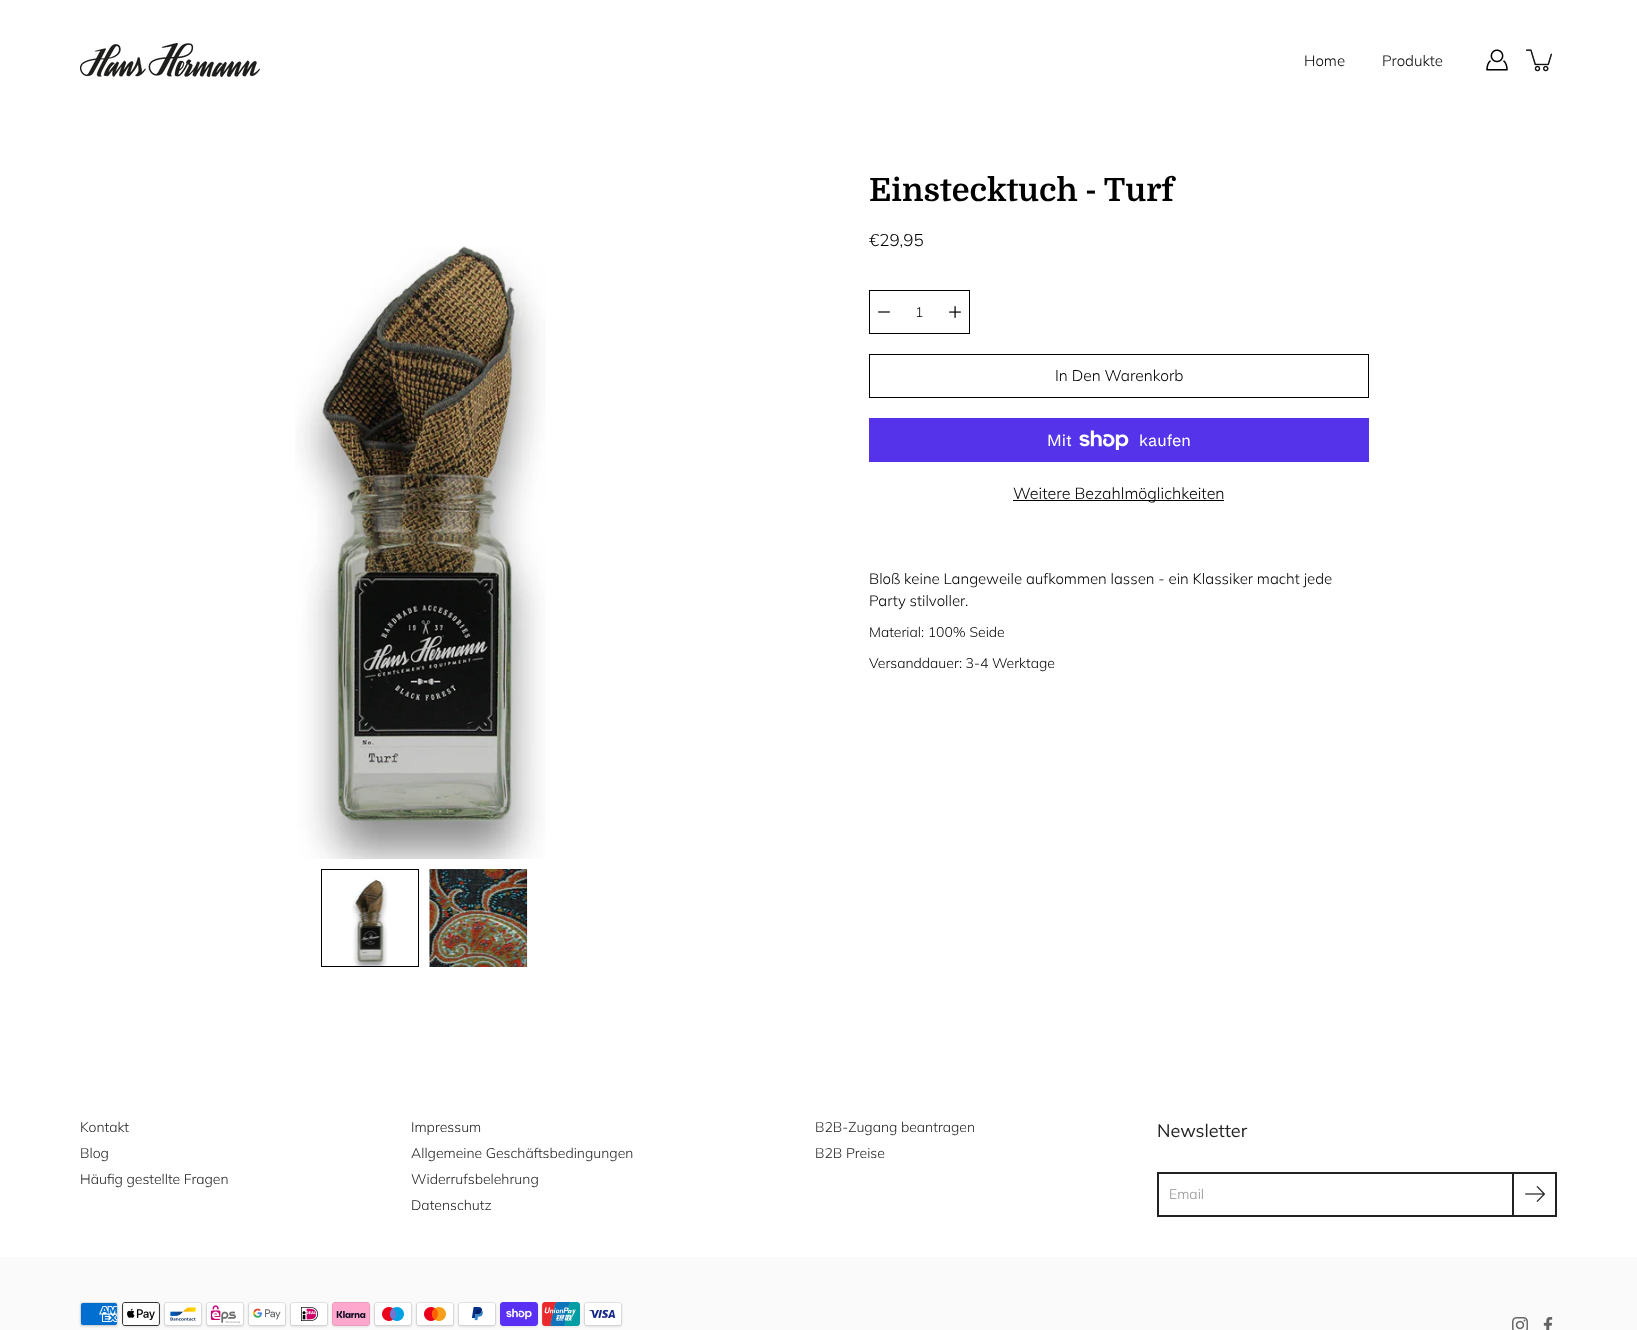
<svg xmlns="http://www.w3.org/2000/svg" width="1637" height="1330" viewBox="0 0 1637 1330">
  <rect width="100%" height="100%" fill="rgb(255,255,255)"/>
  <image x="80" y="43" width="180" height="34" href="pic1.png"/>
  <g font-family="Muli" font-size="15" font-weight="300" fill="rgb(0,0,0)">
    <text x="1304" y="66">Home</text>
    <text x="1382" y="66">Produkte</text>
  </g>
  <image x="1486" y="49" width="22" height="22" href="pic2.png"/>
  <image x="1526" y="49" width="26" height="23" href="pic3.png"/>
  <image x="295" y="245" width="251" height="614" href="pic4.png"/>
  <image x="352" y="877" width="36" height="89" href="pic5.png"/>
  <rect x="321.5" y="869.5" width="97" height="97" fill="none" stroke="rgb(0,0,0)"/>
  <image x="429" y="869" width="99" height="98" href="pic6.png"/>
  <text x="869" y="201" font-family="Domine" font-size="32" font-weight="bold" fill="rgb(0,0,0)">Einstecktuch - Turf</text>
  <text x="869" y="246" font-family="Muli" font-size="17" font-weight="300" fill="rgb(0,0,0)">€29,95</text>
  <rect x="869.5" y="290.5" width="100" height="43" fill="none" stroke="rgb(0,0,0)"/>
  <image x="878" y="311" width="12" height="2" href="pic7.png"/>
  <text x="915" y="317" font-family="Muli" font-size="14" font-weight="300" fill="rgb(0,0,0)">1</text>
  <image x="949" y="306" width="12" height="12" href="pic8.png"/>
  <rect x="869.5" y="354.5" width="499" height="43" fill="none" stroke="rgb(0,0,0)"/>
  <text x="1055" y="381" font-family="Muli" font-size="15.5" font-weight="300" fill="rgb(0,0,0)">In Den Warenkorb</text>
  <rect x="869" y="418" width="500" height="44" fill="rgb(84,51,235)"/>
  <text x="1047" y="446" font-family="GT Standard" font-size="16" fill="rgb(255,255,255)">Mit</text>
  <image x="1079" y="430" width="50" height="20" href="pic9.png"/>
  <text x="1139" y="446" font-family="GT Standard" font-size="16" fill="rgb(255,255,255)">kaufen</text>
  <rect x="1013" y="500" width="211" height="1" fill="rgb(0,0,0)"/>
  <text x="1013" y="499" font-family="Muli" font-size="16" font-weight="300" fill="rgb(0,0,0)">Weitere Bezahlmöglichkeiten</text>
  <g font-family="Muli" font-size="15" font-weight="300" fill="rgb(0,0,0)">
    <text>
      <tspan x="869" y="584">Bloß keine Langeweile aufkommen lassen - ein Klassiker macht jede</tspan>
      <tspan x="869" y="606">Party stilvoller.</tspan>
    </text>
  </g>
  <g font-family="Muli" font-size="14" font-weight="300" fill="rgb(0,0,0)">
    <text x="869" y="637">Material: 100% Seide</text>
    <text x="869" y="668">Versanddauer: 3-4 Werktage</text>
  </g>
  <g font-family="Muli" font-size="14" font-weight="300" fill="rgb(34,34,34)">
    <text>
      <tspan x="80" y="1132">Kontakt</tspan>
      <tspan x="80" y="1158">Blog</tspan>
      <tspan x="80" y="1184">Häufig gestellte Fragen</tspan>
    </text>
    <text>
      <tspan x="411" y="1132">Impressum</tspan>
      <tspan x="411" y="1158">Allgemeine Geschäftsbedingungen</tspan>
      <tspan x="411" y="1184">Widerrufsbelehrung</tspan>
      <tspan x="411" y="1210">Datenschutz</tspan>
    </text>
    <text>
      <tspan x="815" y="1132">B2B-Zugang beantragen</tspan>
      <tspan x="815" y="1158">B2B Preise</tspan>
    </text>
  </g>
  <text x="1157" y="1137" font-family="Muli" font-size="18" fill="rgb(34,34,34)">Newsletter</text>
  <rect x="1158" y="1173" width="398" height="43" fill="none" stroke="rgb(34,34,34)" stroke-width="2"/>
  <text x="1169" y="1199" font-family="Muli" font-size="14" font-weight="300" fill="rgb(145,145,145)">Email</text>
  <rect x="1513" y="1173" width="43" height="43" fill="none" stroke="rgb(34,34,34)" stroke-width="2"/>
  <image x="1525" y="1186" width="20" height="16" href="pic10.png"/>
  <rect x="0" y="1257" width="1637" height="73" fill="rgb(250,250,250)"/>
  <rect x="80" y="1303" width="38" height="24" rx="3" fill="rgba(0,0,0,0.1)" filter="blur(1px)"/>
  <image x="80" y="1302" width="38" height="24" href="pic11.png"/>
  <rect x="122" y="1303" width="38" height="24" rx="3" fill="rgba(0,0,0,0.1)" filter="blur(1px)"/>
  <image x="122" y="1302" width="38" height="24" href="pic12.png"/>
  <rect x="164" y="1303" width="38" height="24" rx="3" fill="rgba(0,0,0,0.1)" filter="blur(1px)"/>
  <image x="164" y="1302" width="38" height="24" href="pic13.png"/>
  <rect x="206" y="1303" width="38" height="24" rx="3" fill="rgba(0,0,0,0.1)" filter="blur(1px)"/>
  <image x="206" y="1302" width="38" height="24" href="pic14.png"/>
  <rect x="248" y="1303" width="38" height="24" rx="3" fill="rgba(0,0,0,0.1)" filter="blur(1px)"/>
  <image x="248" y="1302" width="38" height="24" href="pic15.png"/>
  <rect x="290" y="1303" width="38" height="24" rx="3" fill="rgba(0,0,0,0.1)" filter="blur(1px)"/>
  <image x="290" y="1302" width="38" height="24" href="pic16.png"/>
  <rect x="332" y="1303" width="38" height="24" rx="3" fill="rgba(0,0,0,0.1)" filter="blur(1px)"/>
  <image x="332" y="1302" width="38" height="24" href="pic17.png"/>
  <rect x="374" y="1303" width="38" height="24" rx="3" fill="rgba(0,0,0,0.1)" filter="blur(1px)"/>
  <image x="374" y="1302" width="38" height="24" href="pic18.png"/>
  <rect x="416" y="1303" width="38" height="24" rx="3" fill="rgba(0,0,0,0.1)" filter="blur(1px)"/>
  <image x="416" y="1302" width="38" height="24" href="pic19.png"/>
  <rect x="458" y="1303" width="38" height="24" rx="3" fill="rgba(0,0,0,0.1)" filter="blur(1px)"/>
  <image x="458" y="1302" width="38" height="24" href="pic20.png"/>
  <rect x="500" y="1303" width="38" height="24" rx="3" fill="rgba(0,0,0,0.1)" filter="blur(1px)"/>
  <image x="500" y="1302" width="38" height="24" href="pic21.png"/>
  <rect x="542" y="1303" width="38" height="24" rx="3" fill="rgba(0,0,0,0.1)" filter="blur(1px)"/>
  <image x="542" y="1302" width="38" height="24" href="pic22.png"/>
  <rect x="584" y="1303" width="38" height="24" rx="3" fill="rgba(0,0,0,0.1)" filter="blur(1px)"/>
  <image x="584" y="1302" width="38" height="24" href="pic23.png"/>
  <image x="1512" y="1317" width="16" height="13" href="pic24.png"/>
  <image x="1543" y="1317" width="10" height="13" href="pic25.png"/>
</svg>
